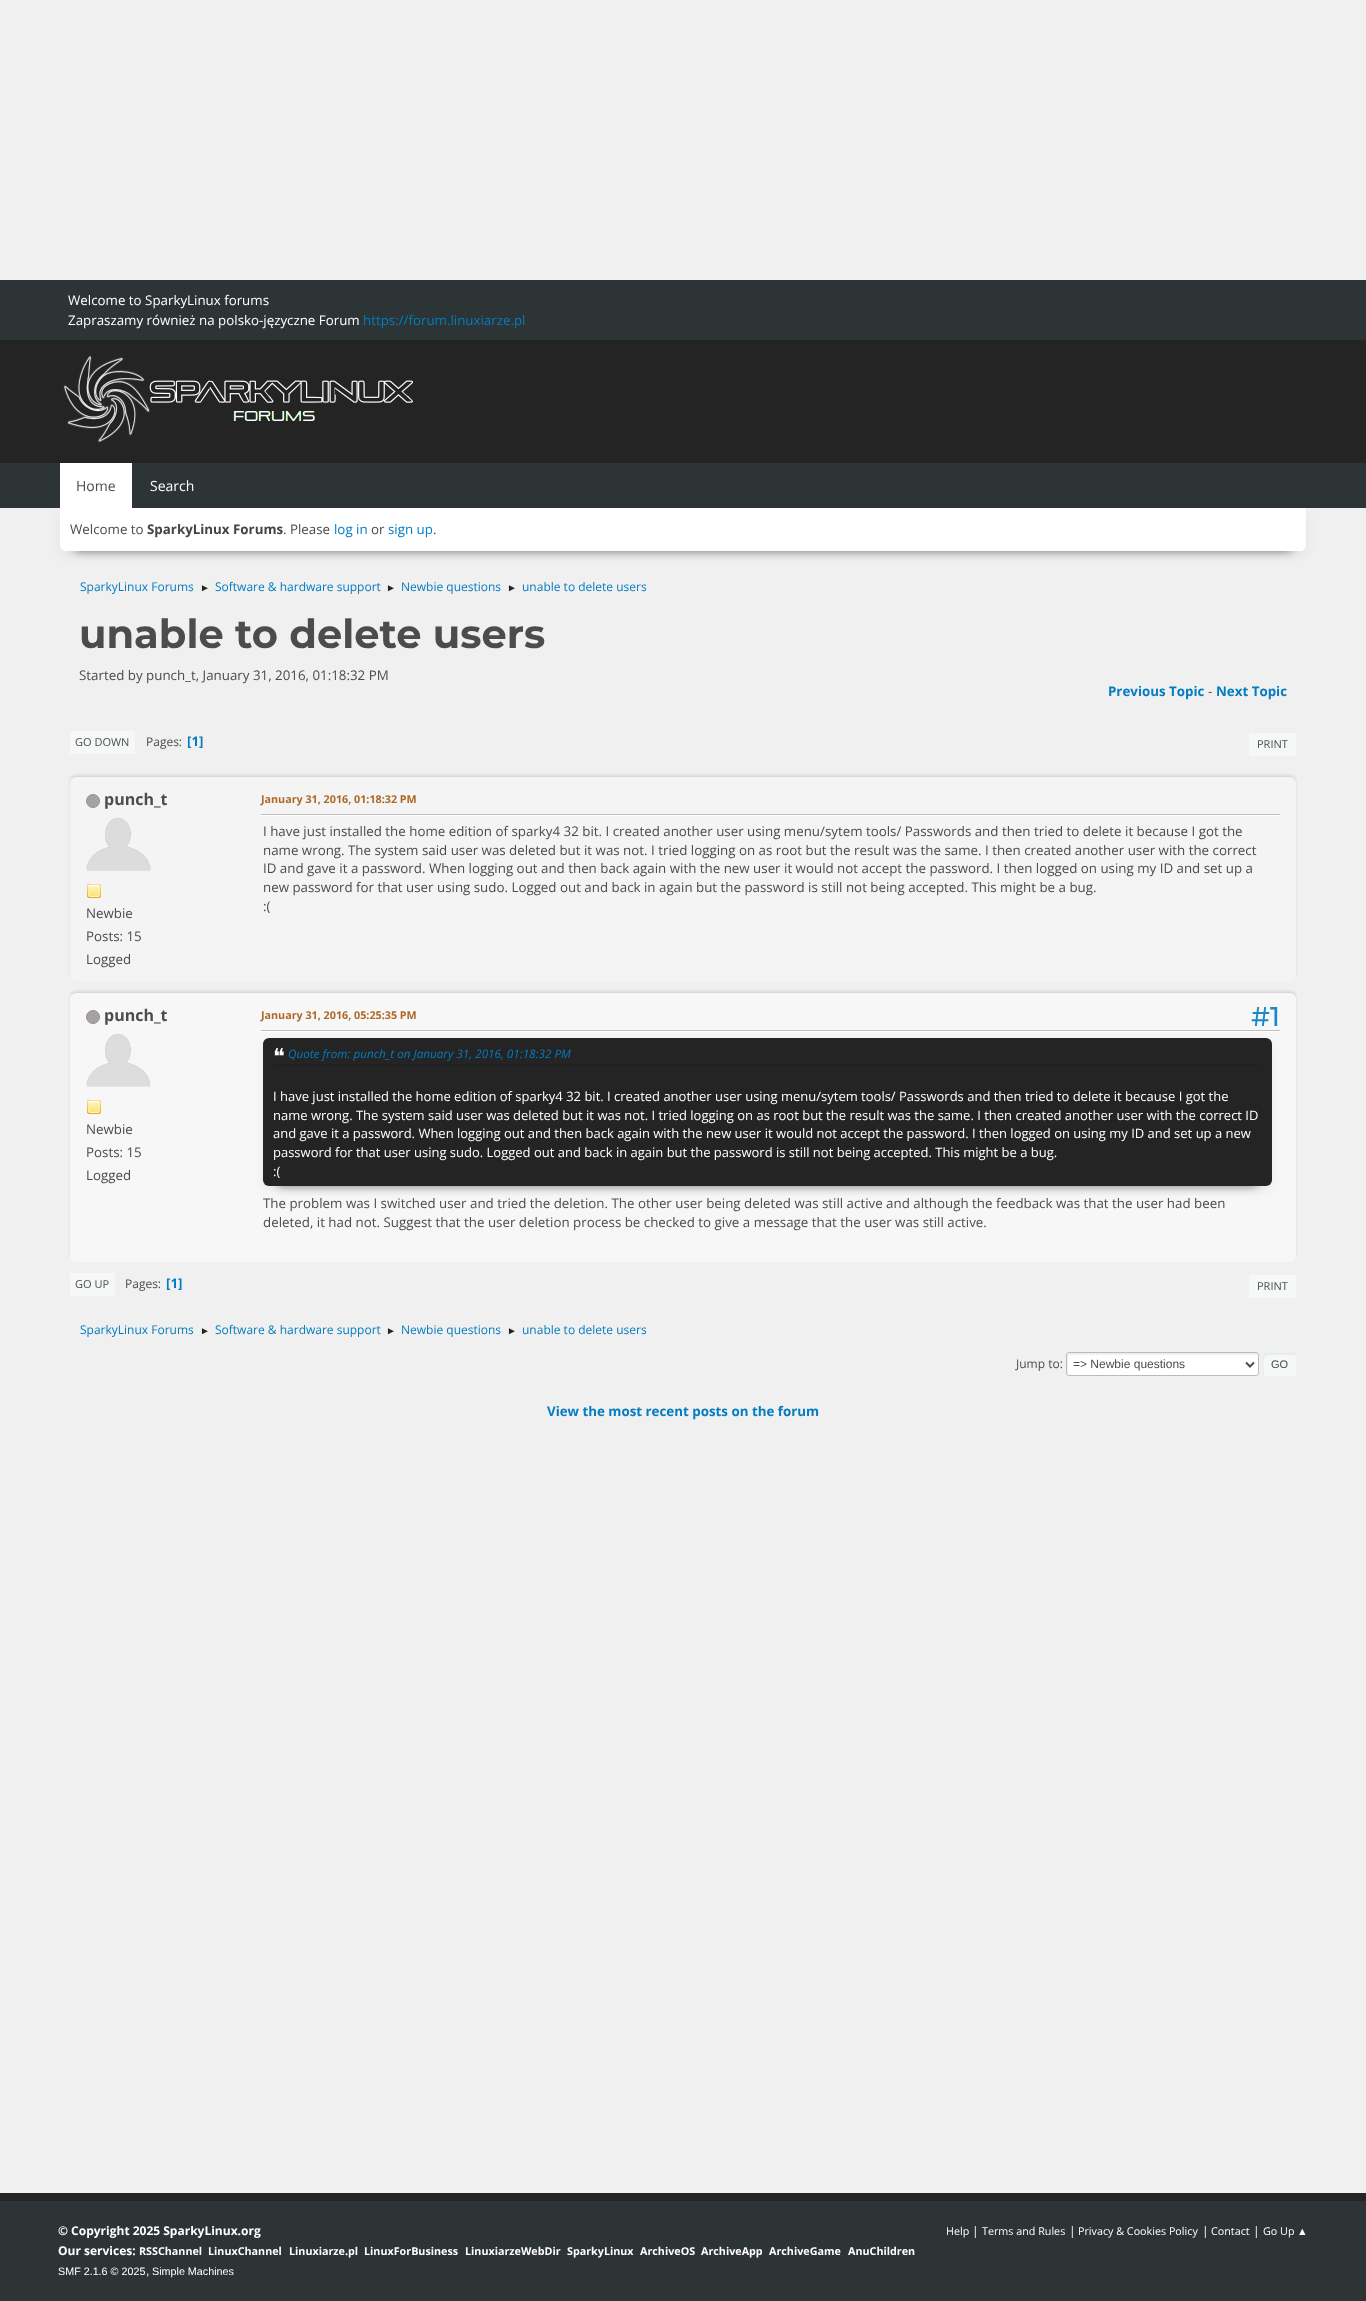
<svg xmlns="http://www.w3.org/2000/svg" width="1366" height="2301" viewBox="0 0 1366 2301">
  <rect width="100%" height="100%" fill="rgb(240,240,240)"/>
  <rect x="0" y="280" width="1366" height="60" fill="rgb(45,52,54)"/>
  <g font-family="Open Sans" font-size="13.33" fill="rgb(255,255,255)">
    <text>
      <tspan x="68" y="305">Welcome to SparkyLinux forums</tspan>
      <tspan x="68" y="325">Zapraszamy również na polsko-języczne Forum</tspan>
    </text>
  </g>
  <text x="363" y="325" font-family="Open Sans" font-size="13.33" fill="rgb(4,124,193)">https://forum.linuxiarze.pl</text>
  <rect x="0" y="340" width="1366" height="123" fill="rgb(36,36,36)"/>
  <image x="63" y="355" width="350" height="88" href="pic1.png"/>
  <rect x="60" y="512" width="1246" height="43" rx="6" fill="rgba(0,0,0,0.05)" filter="blur(6px)"/>
  <rect x="0" y="463" width="1366" height="45" fill="rgb(45,52,54)"/>
  <rect x="60" y="463" width="72" height="45" fill="rgb(255,255,255)"/>
  <text x="76" y="491" font-family="Open Sans" font-size="14" fill="rgb(76,76,76)">Home</text>
  <text x="150" y="491" font-family="Open Sans" font-size="14" fill="rgb(255,255,255)">Search</text>
  <rect x="75" y="538" width="1216" height="13" fill="rgba(1,0,0,0.5)" filter="blur(5px)"/>
  <path d="M60 508H1306V545C1306 548.5 1303.5 551 1300 551H66C62.5 551 60 548.5 60 545Z" fill="rgb(255,255,255)"/>
  <text x="70" y="534" font-family="Open Sans" font-size="13.33" fill="rgb(76,76,76)">Welcome to</text>
  <text x="147" y="534" font-family="Open Sans" font-size="13.33" font-weight="bold" fill="rgb(68,68,68)">SparkyLinux Forums</text>
  <text x="283" y="534" font-family="Open Sans" font-size="13.33" fill="rgb(76,76,76)">. Please</text>
  <text x="334" y="534" font-family="Open Sans" font-size="13.33" fill="rgb(4,124,193)">log in</text>
  <text x="371" y="534" font-family="Open Sans" font-size="13.33" fill="rgb(76,76,76)">or</text>
  <text x="388" y="534" font-family="Open Sans" font-size="13.33" fill="rgb(4,124,193)">sign up</text>
  <text x="433" y="534" font-family="Open Sans" font-size="13.33" fill="rgb(76,76,76)">.</text>
  <text x="80" y="591" font-family="Open Sans" font-size="12" fill="rgb(4,124,193)">SparkyLinux Forums</text>
  <text x="200" y="591" font-family="Liberation Sans" font-size="10" fill="rgb(36,36,36)">►</text>
  <text x="215" y="591" font-family="Open Sans" font-size="12" fill="rgb(4,124,193)">Software &amp; hardware support</text>
  <text x="386" y="591" font-family="Liberation Sans" font-size="10" fill="rgb(36,36,36)">►</text>
  <text x="401" y="591" font-family="Open Sans" font-size="12" fill="rgb(4,124,193)">Newbie questions</text>
  <text x="507" y="591" font-family="Liberation Sans" font-size="10" fill="rgb(36,36,36)">►</text>
  <text x="522" y="591" font-family="Open Sans" font-size="12" fill="rgb(4,124,193)">unable to delete users</text>
  <text x="79" y="648" font-family="Montserrat" font-size="40" font-weight="bold" fill="rgb(76,76,76)">unable to delete users</text>
  <text x="79" y="680" font-family="Open Sans" font-size="13.33" fill="rgb(76,76,76)">Started by punch_t, January 31, 2016, 01:18:32 PM</text>
  <text x="1108" y="696" font-family="Open Sans" font-size="13.33" font-weight="bold" fill="rgb(4,124,193)">Previous Topic</text>
  <text x="1208" y="696" font-family="Open Sans" font-size="13.33" fill="rgb(76,76,76)">-</text>
  <text x="1216" y="696" font-family="Open Sans" font-size="13.33" font-weight="bold" fill="rgb(4,124,193)">Next Topic</text>
  <rect x="70" y="731" width="65" height="23" fill="rgb(246,248,248)"/>
  <text x="75" y="746" font-family="Open Sans" font-size="11" fill="rgb(76,76,76)">GO DOWN</text>
  <text x="146" y="746" font-family="Open Sans" font-size="12" fill="rgb(76,76,76)">Pages:</text>
  <text x="187" y="746" font-family="Open Sans" font-size="13.33" font-weight="bold" fill="rgb(4,124,193)">[1]</text>
  <rect x="1249" y="733" width="47" height="23" fill="rgb(246,248,248)"/>
  <text x="1257" y="748" font-family="Open Sans" font-size="11" fill="rgb(76,76,76)">PRINT</text>
  <rect x="70" y="775" width="1226" height="204" rx="6" fill="rgba(0,0,0,0.1)" filter="blur(1px)"/>
  <rect x="70" y="777" width="1226" height="204" rx="6" fill="rgb(244,244,244)"/>
  <circle cx="93" cy="801" r="6.5" fill="rgb(167,162,162)" stroke="rgb(150,146,146)"/>
  <text x="104" y="805" font-family="Open Sans" font-size="16" font-weight="bold" fill="rgb(76,76,76)">punch_t</text>
  <image x="86" y="818" width="65" height="53" href="pic2.png"/>
  <image x="87" y="884" width="14" height="14" href="pic3.png"/>
  <g font-family="Open Sans" font-size="13.33" fill="rgb(76,76,76)">
    <text>
      <tspan x="86" y="918">Newbie</tspan>
      <tspan x="86" y="941">Posts: 15</tspan>
      <tspan x="86" y="964">Logged</tspan>
    </text>
  </g>
  <text x="261" y="803" font-family="Open Sans" font-size="10.75" font-weight="bold" fill="rgb(173,104,37)">January 31, 2016, 01:18:32 PM</text>
  <rect x="261" y="815" width="1019" height="1" fill="rgb(255,255,255)"/>
  <rect x="261" y="814" width="1019" height="1" fill="rgb(191,191,191)"/>
  <g font-family="Open Sans" font-size="13.33" fill="rgb(76,76,76)">
    <text>
      <tspan x="263" y="836">I have just installed the home edition of sparky4 32 bit. I created another user using menu/sytem tools/ Passwords and then tried to delete it because I got the</tspan>
      <tspan x="263" y="855">name wrong. The system said user was deleted but it was not. I tried logging on as root but the result was the same. I then created another user with the correct</tspan>
      <tspan x="263" y="873">ID and gave it a password. When logging out and then back again with the new user it would not accept the password. I then logged on using my ID and set up a</tspan>
      <tspan x="263" y="892">new password for that user using sudo. Logged out and back in again but the password is still not being accepted. This might be a bug.</tspan>
      <tspan x="263" y="911">:(</tspan>
    </text>
  </g>
  <rect x="70" y="991" width="1226" height="269" rx="6" fill="rgba(0,0,0,0.1)" filter="blur(1px)"/>
  <rect x="70" y="993" width="1226" height="269" rx="6" fill="rgb(247,247,247)"/>
  <circle cx="93" cy="1017" r="6.5" fill="rgb(167,162,162)" stroke="rgb(150,146,146)"/>
  <text x="104" y="1021" font-family="Open Sans" font-size="16" font-weight="bold" fill="rgb(76,76,76)">punch_t</text>
  <image x="86" y="1034" width="65" height="53" href="pic4.png"/>
  <image x="87" y="1100" width="14" height="14" href="pic5.png"/>
  <g font-family="Open Sans" font-size="13.33" fill="rgb(76,76,76)">
    <text>
      <tspan x="86" y="1134">Newbie</tspan>
      <tspan x="86" y="1157">Posts: 15</tspan>
      <tspan x="86" y="1180">Logged</tspan>
    </text>
  </g>
  <text x="261" y="1019" font-family="Open Sans" font-size="10.75" font-weight="bold" fill="rgb(173,104,37)">January 31, 2016, 05:25:35 PM</text>
  <rect x="261" y="1031" width="1019" height="1" fill="rgb(255,255,255)"/>
  <rect x="261" y="1030" width="1019" height="1" fill="rgb(191,191,191)"/>
  <rect x="263" y="1042" width="1009" height="148" rx="6" fill="rgba(0,0,0,0.05)" filter="blur(6px)"/>
  <text x="1251" y="1026" font-family="Montserrat" font-size="27" font-weight="500" fill="rgb(28,136,198)">#1</text>
  <rect x="278" y="1068" width="979" height="118" fill="rgba(1,0,0,0.5)" filter="blur(5px)"/>
  <rect x="263" y="1038" width="1009" height="148" rx="6" fill="rgb(36,36,36)"/>
  <rect x="273" y="1064" width="989" height="1" fill="rgb(32,32,32)"/>
  <text x="273" y="1064" font-family="DejaVu Sans" font-size="22" fill="rgb(255,255,255)">❝</text>
  <text x="288" y="1058" font-family="Open Sans" font-size="11.7" font-style="italic" fill="rgb(4,124,193)">Quote from: punch_t on January 31, 2016, 01:18:32 PM</text>
  <g font-family="Open Sans" font-size="13" fill="rgb(255,255,255)">
    <text>
      <tspan x="273" y="1101">I have just installed the home edition of sparky4 32 bit. I created another user using menu/sytem tools/ Passwords and then tried to delete it because I got the</tspan>
      <tspan x="273" y="1120">name wrong. The system said user was deleted but it was not. I tried logging on as root but the result was the same. I then created another user with the correct ID</tspan>
      <tspan x="273" y="1138">and gave it a password. When logging out and then back again with the new user it would not accept the password. I then logged on using my ID and set up a new</tspan>
      <tspan x="273" y="1157">password for that user using sudo. Logged out and back in again but the password is still not being accepted. This might be a bug.</tspan>
      <tspan x="273" y="1176">:(</tspan>
    </text>
  </g>
  <g font-family="Open Sans" font-size="13.33" fill="rgb(76,76,76)">
    <text>
      <tspan x="263" y="1208">The problem was I switched user and tried the deletion. The other user being deleted was still active and although the feedback was that the user had been</tspan>
      <tspan x="263" y="1227">deleted, it had not. Suggest that the user deletion process be checked to give a message that the user was still active.</tspan>
    </text>
  </g>
  <rect x="70" y="1273" width="45" height="23" fill="rgb(246,248,248)"/>
  <text x="75" y="1288" font-family="Open Sans" font-size="11" fill="rgb(76,76,76)">GO UP</text>
  <text x="125" y="1288" font-family="Open Sans" font-size="12" fill="rgb(76,76,76)">Pages:</text>
  <text x="166" y="1288" font-family="Open Sans" font-size="13.33" font-weight="bold" fill="rgb(4,124,193)">[1]</text>
  <rect x="1249" y="1275" width="47" height="23" fill="rgb(246,248,248)"/>
  <text x="1257" y="1290" font-family="Open Sans" font-size="11" fill="rgb(76,76,76)">PRINT</text>
  <text x="80" y="1334" font-family="Open Sans" font-size="12" fill="rgb(4,124,193)">SparkyLinux Forums</text>
  <text x="200" y="1334" font-family="Liberation Sans" font-size="10" fill="rgb(36,36,36)">►</text>
  <text x="215" y="1334" font-family="Open Sans" font-size="12" fill="rgb(4,124,193)">Software &amp; hardware support</text>
  <text x="386" y="1334" font-family="Liberation Sans" font-size="10" fill="rgb(36,36,36)">►</text>
  <text x="401" y="1334" font-family="Open Sans" font-size="12" fill="rgb(4,124,193)">Newbie questions</text>
  <text x="507" y="1334" font-family="Liberation Sans" font-size="10" fill="rgb(36,36,36)">►</text>
  <text x="522" y="1334" font-family="Open Sans" font-size="12" fill="rgb(4,124,193)">unable to delete users</text>
  <text x="1016" y="1368" font-family="Open Sans" font-size="12" fill="rgb(76,76,76)">Jump to:</text>
  <rect x="1066" y="1352" width="193" height="24" rx="3" fill="rgb(255,255,255)"/>
  <path d="M1070 1355H1258C1258 1354 1257 1353 1256 1353H1069C1068 1353 1067 1354 1067 1355V1373C1067 1374 1067 1374 1068 1375V1357C1068 1356 1069 1355 1070 1355Z" fill="rgb(236,241,248)"/>
  <rect x="1066.5" y="1352.5" width="192" height="23" rx="2.5" fill="none" stroke="rgb(187,187,187)"/>
  <path d="M1246 1362.5L1250 1366.5L1254 1362.5" fill="none" stroke="rgb(76,76,76)" stroke-width="2"/>
  <text x="1073" y="1368" font-family="Liberation Sans" font-size="12" fill="rgb(76,76,76)">=&gt; Newbie questions</text>
  <rect x="1263" y="1353" width="33" height="23" rx="3" fill="rgb(246,248,248)"/>
  <path d="M1267 1355H1290C1293 1355 1295 1355.5 1296 1356C1296 1354.5 1294.5 1353 1293 1353H1266C1264.5 1353 1263 1354.5 1263 1356V1373C1263 1374 1263.5 1375 1264.5 1375.5C1263.5 1373 1263.5 1362 1264 1359.5C1264 1358.5 1264 1357 1265 1356Z" fill="rgba(160,187,221,0.2)"/>
  <text x="1271" y="1368" font-family="Liberation Sans" font-size="11" fill="rgb(76,76,76)">GO</text>
  <text x="547" y="1416" font-family="Open Sans" font-size="13.33" font-weight="bold" fill="rgb(4,124,193)">View the most recent posts on the forum</text>
  <rect x="0" y="2201" width="1366" height="100" fill="rgb(45,52,54)"/>
  <rect x="0" y="2193" width="1366" height="8" fill="rgb(36,36,36)"/>
  <g font-family="Open Sans" font-size="12" font-weight="bold" fill="rgb(255,255,255)">
    <text>
      <tspan x="58" y="2235">© Copyright 2025 SparkyLinux.org</tspan>
      <tspan x="58" y="2255">Our services:</tspan>
    </text>
  </g>
  <g font-family="Open Sans" font-size="10.75" font-weight="bold" fill="rgb(255,255,255)">
    <text x="139" y="2255">RSSChannel</text>
    <text x="208" y="2255">LinuxChannel</text>
    <text x="289" y="2255">Linuxiarze.pl</text>
    <text x="364" y="2255">LinuxForBusiness</text>
    <text x="465" y="2255">LinuxiarzeWebDir</text>
    <text x="567" y="2255">SparkyLinux</text>
    <text x="640" y="2255">ArchiveOS</text>
    <text x="701" y="2255">ArchiveApp</text>
    <text x="769" y="2255">ArchiveGame</text>
    <text x="848" y="2255">AnuChildren</text>
  </g>
  <text x="946" y="2235" font-family="Open Sans" font-size="10.75" fill="rgb(255,255,255)">Help</text>
  <text x="972" y="2235" font-family="Open Sans" font-size="12" fill="rgb(255,255,255)">|</text>
  <text x="982" y="2235" font-family="Open Sans" font-size="10.75" fill="rgb(255,255,255)">Terms and Rules</text>
  <text x="1069" y="2235" font-family="Open Sans" font-size="12" fill="rgb(255,255,255)">|</text>
  <text x="1078" y="2235" font-family="Open Sans" font-size="10.75" fill="rgb(255,255,255)">Privacy &amp; Cookies Policy</text>
  <text x="1202" y="2235" font-family="Open Sans" font-size="12" fill="rgb(255,255,255)">|</text>
  <text x="1211" y="2235" font-family="Open Sans" font-size="10.75" fill="rgb(255,255,255)">Contact</text>
  <text x="1253" y="2235" font-family="Open Sans" font-size="12" fill="rgb(255,255,255)">|</text>
  <text x="1263" y="2235" font-family="Open Sans" font-size="10.75" fill="rgb(255,255,255)">Go Up</text>
  <g font-family="Liberation Sans" font-size="10.75" fill="rgb(255,255,255)">
    <text x="1297" y="2235">▲</text>
    <text x="58" y="2275">SMF 2.1.6 © 2025</text>
  </g>
  <text x="146" y="2275" font-family="Liberation Sans" font-size="12" fill="rgb(255,255,255)">,</text>
  <text x="152" y="2275" font-family="Liberation Sans" font-size="10.75" fill="rgb(255,255,255)">Simple Machines</text>
</svg>
